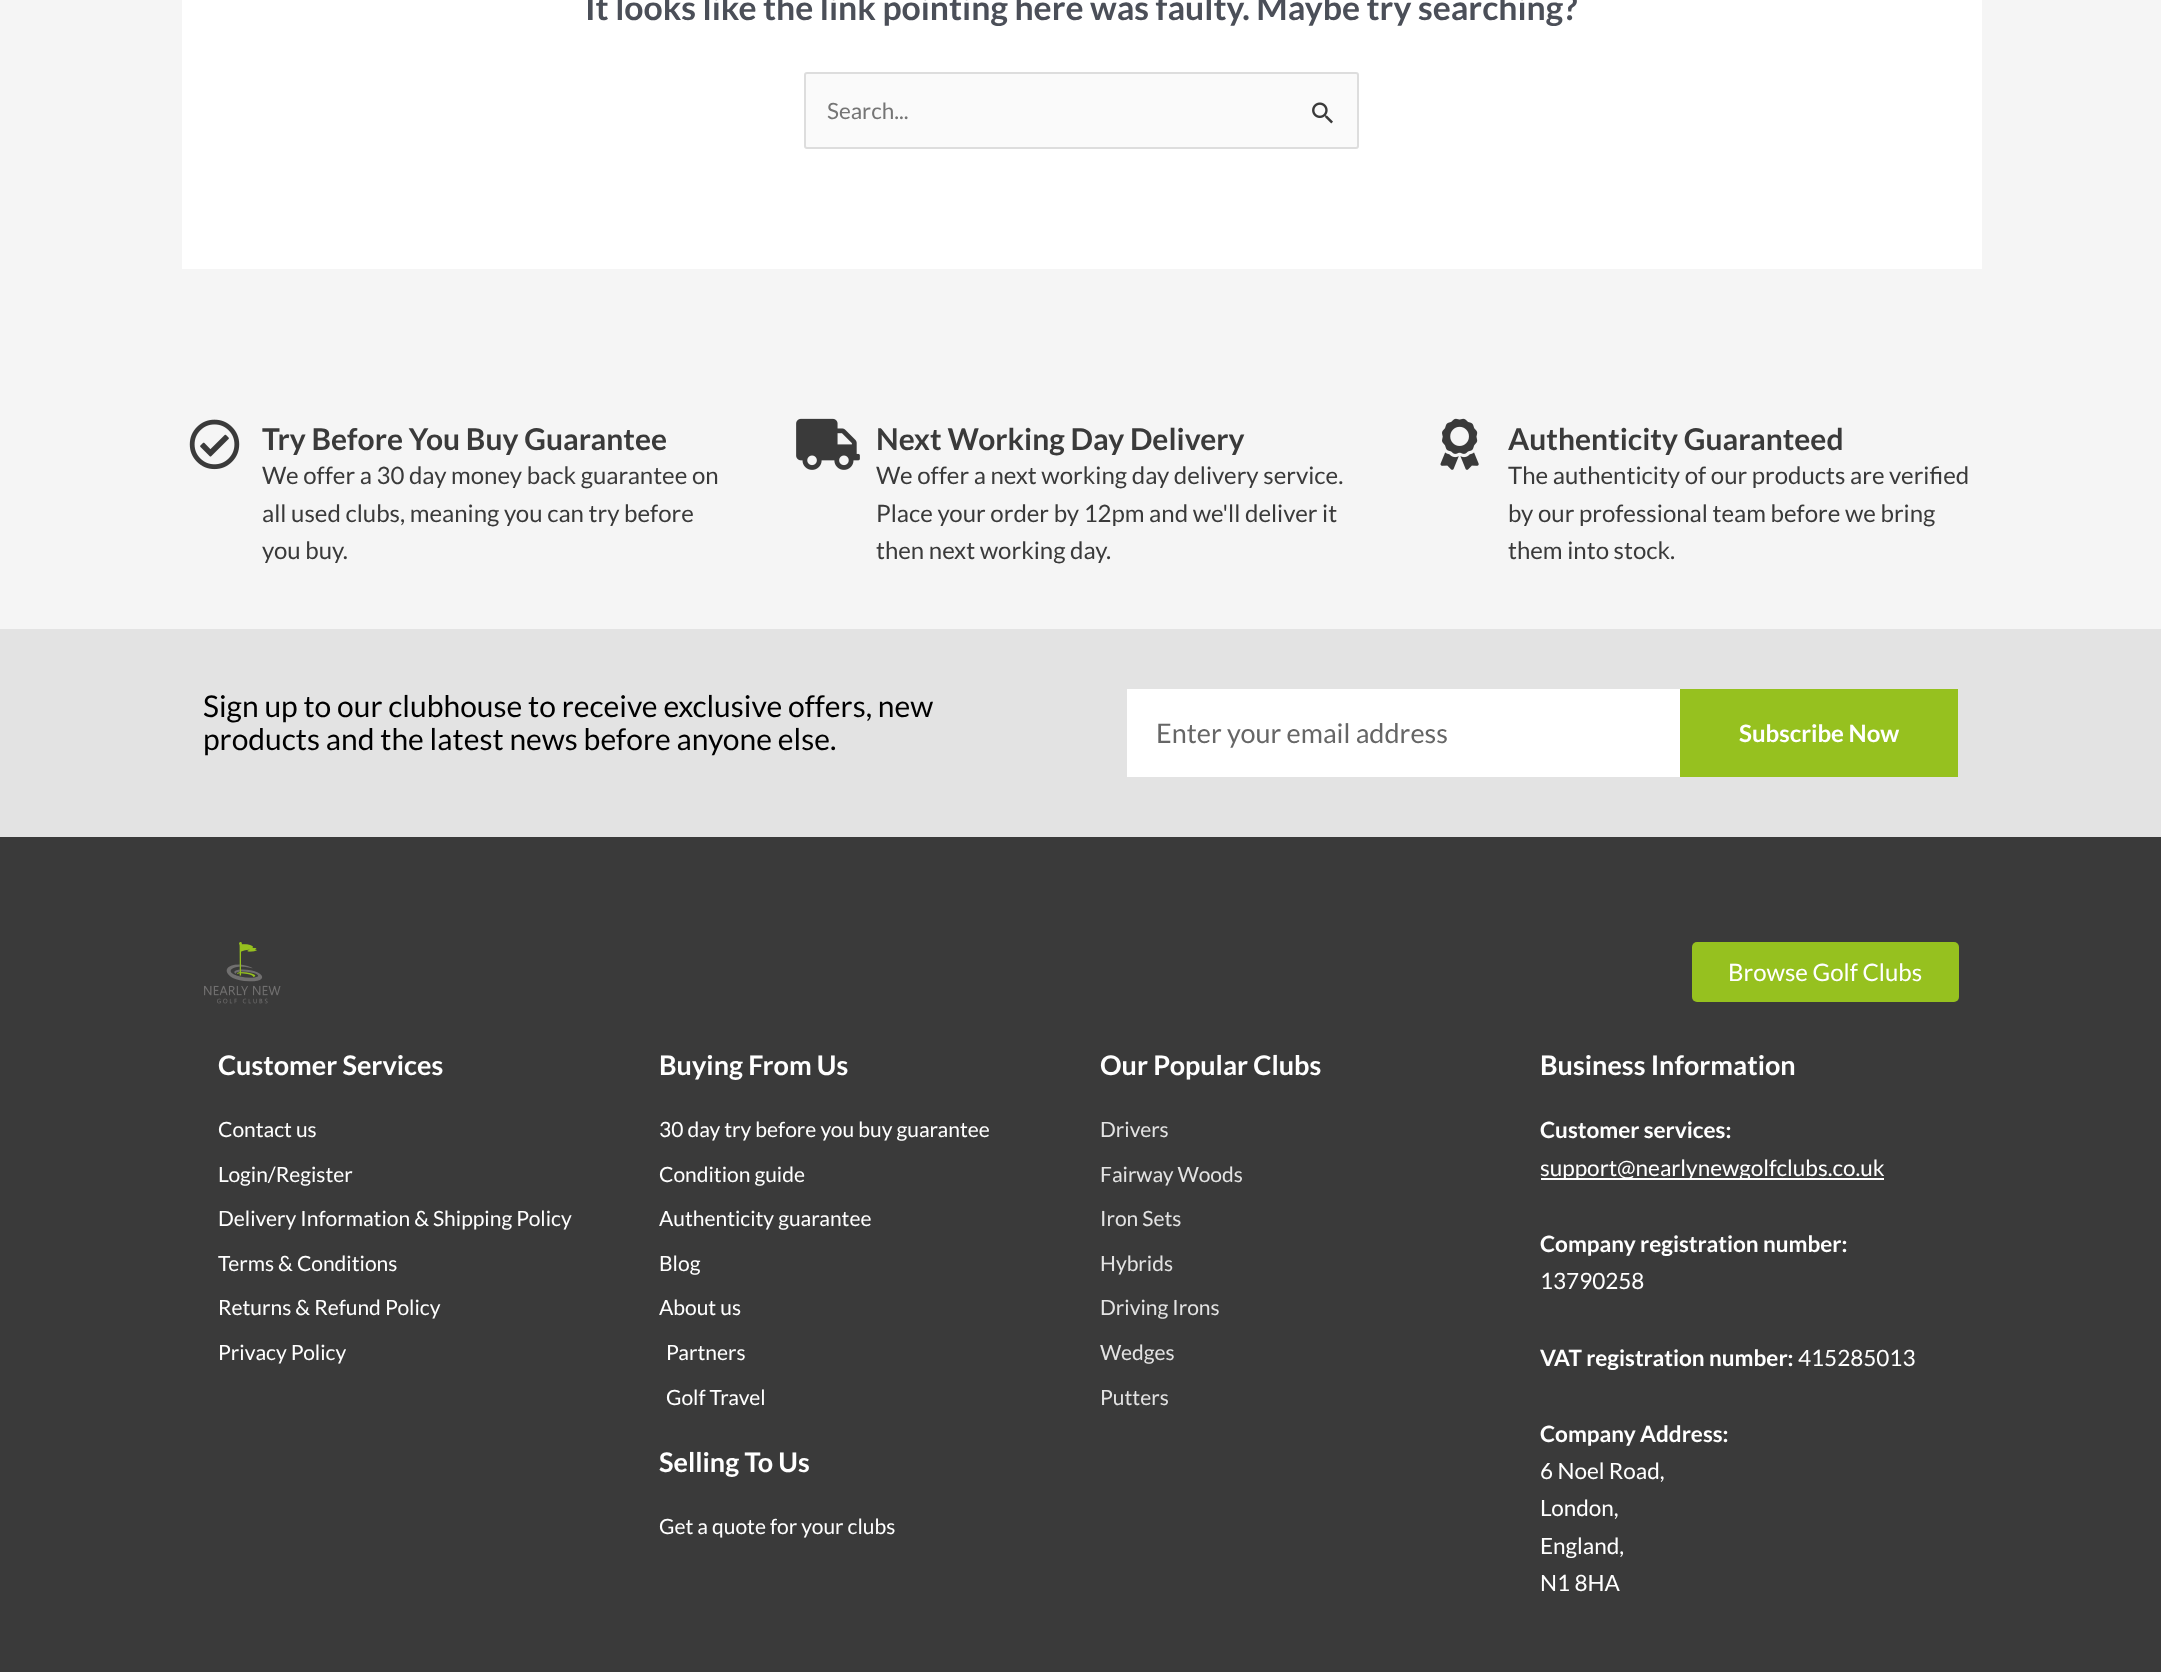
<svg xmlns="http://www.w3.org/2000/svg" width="2161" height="1672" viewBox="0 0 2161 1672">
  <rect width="100%" height="100%" fill="rgb(245,245,245)"/>
  <rect x="182" y="0" width="1800" height="269" fill="rgb(255,255,255)"/>
  <text x="585" y="20" font-family="Lato" font-size="33.75" font-weight="bold" fill="rgb(75,79,88)">It looks like the link pointing here was faulty. Maybe try searching?</text>
  <rect x="805" y="73" width="553" height="75" rx="2" fill="rgb(250,250,250)" stroke="rgb(221,221,221)" stroke-width="2"/>
  <text x="827" y="119" font-family="Lato" font-size="22.5" fill="rgb(117,117,117)">Search...</text>
  <image x="1312" y="102" width="21" height="22" href="pic1.png"/>
  <image x="189" y="419" width="51" height="51" href="pic2.png"/>
  <text x="262" y="450" font-family="Lato" font-size="30" font-weight="bold" fill="rgb(58,58,58)">Try Before You Buy Guarantee</text>
  <g font-family="Lato" font-size="24" fill="rgb(58,58,58)">
    <text>
      <tspan x="262" y="484">We offer a 30 day money back guarantee on</tspan>
      <tspan x="262" y="522">all used clubs, meaning you can try before</tspan>
      <tspan x="262" y="559">you buy.</tspan>
    </text>
  </g>
  <image x="796" y="418" width="64" height="52" href="pic3.png"/>
  <text x="876" y="450" font-family="Lato" font-size="30" font-weight="bold" fill="rgb(58,58,58)">Next Working Day Delivery</text>
  <g font-family="Lato" font-size="24" fill="rgb(58,58,58)">
    <text>
      <tspan x="876" y="484">We offer a next working day delivery service.</tspan>
      <tspan x="876" y="522">Place your order by 12pm and we'll deliver it</tspan>
      <tspan x="876" y="559">then next working day.</tspan>
    </text>
  </g>
  <image x="1440" y="418" width="39" height="52" href="pic4.png"/>
  <text x="1508" y="450" font-family="Lato" font-size="30" font-weight="bold" fill="rgb(58,58,58)">Authenticity Guaranteed</text>
  <g font-family="Lato" font-size="24" fill="rgb(58,58,58)">
    <text>
      <tspan x="1508" y="484">The authenticity of our products are verified</tspan>
      <tspan x="1508" y="522">by our professional team before we bring</tspan>
      <tspan x="1508" y="559">them into stock.</tspan>
    </text>
  </g>
  <rect x="0" y="629" width="2161" height="208" fill="rgb(227,227,227)"/>
  <g font-family="Lato" font-size="30" fill="rgb(0,0,0)">
    <text>
      <tspan x="203" y="717">Sign up to our clubhouse to receive exclusive offers, new</tspan>
      <tspan x="203" y="750">products and the latest news before anyone else.</tspan>
    </text>
  </g>
  <rect x="1127" y="689" width="553" height="88" fill="rgb(255,255,255)"/>
  <text x="1156" y="743" font-family="Lato" font-size="27" fill="rgb(102,102,102)">Enter your email address</text>
  <rect x="1680" y="689" width="278" height="88" fill="rgb(150,193,31)"/>
  <text x="1739" y="742" font-family="Lato" font-size="24" font-weight="bold" fill="rgb(255,255,255)">Subscribe Now</text>
  <rect x="0" y="837" width="2161" height="835" fill="rgb(58,58,58)"/>
  <image x="204" y="942" width="77" height="62" href="pic5.png"/>
  <rect x="1692" y="942" width="267" height="60" rx="5" fill="rgb(150,193,31)"/>
  <text x="1728" y="981" font-family="Lato" font-size="24" fill="rgb(255,255,255)">Browse Golf Clubs</text>
  <text x="218" y="1075" font-family="Lato" font-size="27" font-weight="bold" fill="rgb(255,255,255)">Customer Services</text>
  <g font-family="Lato" font-size="21" fill="rgb(255,255,255)">
    <text x="218" y="1137">Contact us</text>
    <text x="218" y="1182">Login/Register</text>
    <text x="218" y="1226">Delivery Information &amp; Shipping Policy</text>
    <text x="218" y="1271">Terms &amp; Conditions</text>
    <text x="218" y="1315">Returns &amp; Refund Policy</text>
    <text x="218" y="1360">Privacy Policy</text>
  </g>
  <text x="659" y="1075" font-family="Lato" font-size="27" font-weight="bold" fill="rgb(255,255,255)">Buying From Us</text>
  <g font-family="Lato" font-size="21" fill="rgb(255,255,255)">
    <text x="659" y="1137">30 day try before you buy guarantee</text>
    <text x="659" y="1182">Condition guide</text>
    <text x="659" y="1226">Authenticity guarantee</text>
    <text x="659" y="1271">Blog</text>
    <text x="659" y="1315">About us</text>
    <text x="666" y="1360">Partners</text>
    <text x="666" y="1405">Golf Travel</text>
  </g>
  <text x="659" y="1472" font-family="Lato" font-size="27" font-weight="bold" fill="rgb(255,255,255)">Selling To Us</text>
  <text x="659" y="1534" font-family="Lato" font-size="21" fill="rgb(255,255,255)">Get a quote for your clubs</text>
  <text x="1100" y="1075" font-family="Lato" font-size="27" font-weight="bold" fill="rgb(255,255,255)">Our Popular Clubs</text>
  <g font-family="Lato" font-size="21" fill="rgb(227,227,227)">
    <text x="1100" y="1137">Drivers</text>
    <text x="1100" y="1182">Fairway Woods</text>
    <text x="1100" y="1226">Iron Sets</text>
    <text x="1100" y="1271">Hybrids</text>
    <text x="1100" y="1315">Driving Irons</text>
    <text x="1100" y="1360">Wedges</text>
    <text x="1100" y="1405">Putters</text>
  </g>
  <text x="1540" y="1075" font-family="Lato" font-size="27" font-weight="bold" fill="rgb(255,255,255)">Business Information</text>
  <text x="1540" y="1138" font-family="Lato" font-size="22.5" font-weight="bold" fill="rgb(255,255,255)">Customer services:</text>
  <rect x="1541" y="1178" width="343" height="2" fill="rgb(255,255,255)"/>
  <text x="1540" y="1176" font-family="Lato" font-size="22.5" fill="rgb(255,255,255)">support@nearlynewgolfclubs.co.uk</text>
  <text x="1540" y="1252" font-family="Lato" font-size="22.5" font-weight="bold" fill="rgb(255,255,255)">Company registration number:</text>
  <text x="1540" y="1289" font-family="Lato" font-size="22.5" fill="rgb(255,255,255)">13790258</text>
  <text x="1540" y="1366" font-family="Lato" font-size="22.5" font-weight="bold" fill="rgb(255,255,255)">VAT registration number:</text>
  <text x="1798" y="1366" font-family="Lato" font-size="22.5" fill="rgb(255,255,255)">415285013</text>
  <text x="1540" y="1442" font-family="Lato" font-size="22.5" font-weight="bold" fill="rgb(255,255,255)">Company Address:</text>
  <g font-family="Lato" font-size="22.5" fill="rgb(255,255,255)">
    <text>
      <tspan x="1540" y="1479">6 Noel Road,</tspan>
      <tspan x="1540" y="1516">London,</tspan>
      <tspan x="1540" y="1554">England,</tspan>
      <tspan x="1540" y="1591">N1 8HA</tspan>
    </text>
  </g>
</svg>
